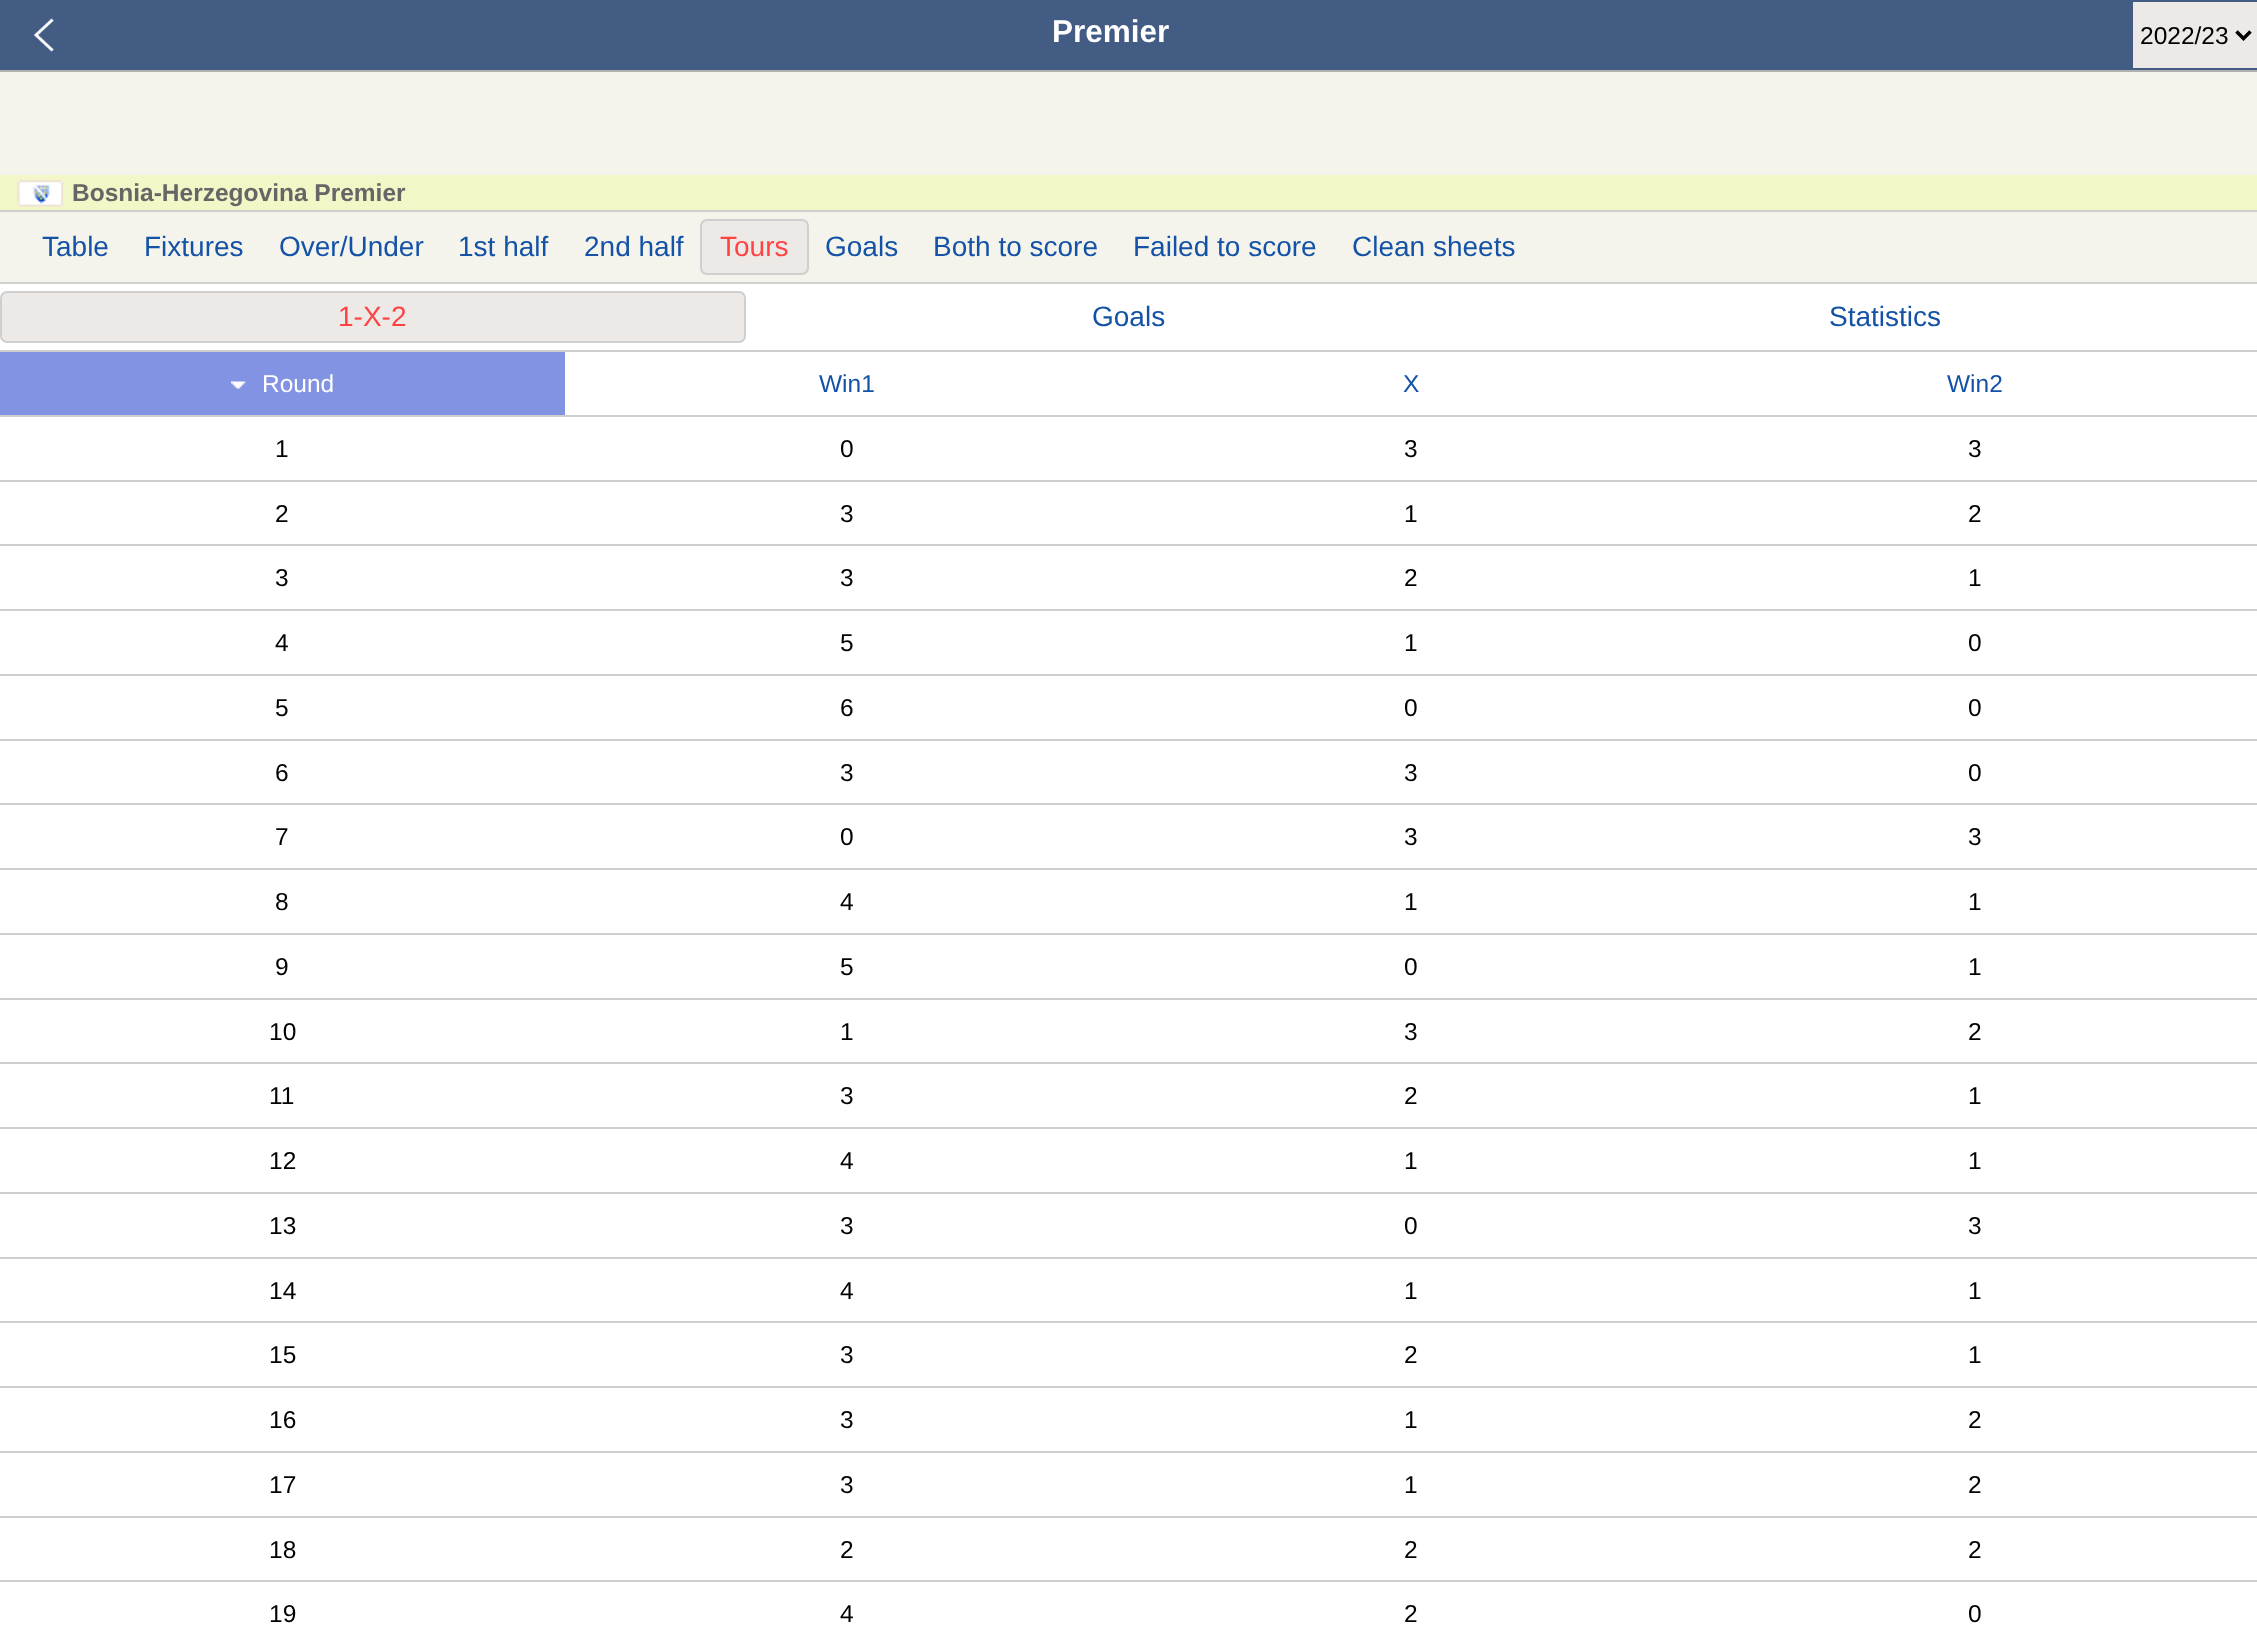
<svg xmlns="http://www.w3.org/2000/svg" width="2257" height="1625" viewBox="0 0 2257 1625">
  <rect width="100%" height="100%" fill="rgb(244,244,237)"/>
  <rect x="0" y="70" width="2257" height="2" fill="rgb(176,176,176)"/>
  <rect x="0" y="0" width="2257" height="70" fill="rgb(67,92,132)"/>
  <image x="34" y="18" width="20" height="34" href="pic1.png"/>
  <text x="1052" y="42" font-family="Liberation Sans" font-size="31.5" font-weight="bold" fill="rgb(255,255,255)">Premier</text>
  <rect x="2133" y="2" width="124" height="66" fill="rgb(237,233,230)"/>
  <path d="M2236.5 31.5L2243.5 38.5L2250.5 31.5" fill="none" stroke="rgb(0,0,0)" stroke-width="3.5"/>
  <text x="2140" y="44" font-family="Liberation Sans" font-size="24.5" fill="rgb(0,0,0)">2022/23</text>
  <rect x="0" y="175" width="2257" height="35" fill="rgb(243,247,200)"/>
  <image x="17" y="180" width="46" height="27" href="pic2.png"/>
  <text x="72" y="201" font-family="Liberation Sans" font-size="24.5" font-weight="bold" fill="rgb(102,102,102)">Bosnia-Herzegovina Premier</text>
  <rect x="0" y="210" width="2257" height="2" fill="rgb(207,207,207)"/>
  <rect x="0" y="282" width="2257" height="2" fill="rgb(207,207,207)"/>
  <g font-family="Liberation Sans" font-size="28" fill="rgb(20,82,167)">
    <text x="42" y="256">Table</text>
    <text x="144" y="256">Fixtures</text>
    <text x="279" y="256">Over/Under</text>
    <text x="458" y="256">1st half</text>
    <text x="584" y="256">2nd half</text>
  </g>
  <rect x="701" y="220" width="107" height="54" rx="6" fill="rgb(237,233,230)" stroke="rgb(207,207,207)" stroke-width="2"/>
  <text x="720" y="256" font-family="Liberation Sans" font-size="28" fill="rgb(255,66,66)">Tours</text>
  <g font-family="Liberation Sans" font-size="28" fill="rgb(20,82,167)">
    <text x="825" y="256">Goals</text>
    <text x="933" y="256">Both to score</text>
    <text x="1133" y="256">Failed to score</text>
    <text x="1352" y="256">Clean sheets</text>
  </g>
  <rect x="0" y="284" width="2257" height="1341" fill="rgb(255,255,255)"/>
  <rect x="0" y="350" width="2257" height="2" fill="rgb(207,207,207)"/>
  <rect x="1" y="292" width="744" height="50" rx="6" fill="rgb(237,233,230)" stroke="rgb(207,207,207)" stroke-width="2"/>
  <text x="338" y="326" font-family="Liberation Sans" font-size="28" fill="rgb(255,66,66)">1-X-2</text>
  <g font-family="Liberation Sans" font-size="28" fill="rgb(20,82,167)">
    <text x="1092" y="326">Goals</text>
    <text x="1829" y="326">Statistics</text>
  </g>
  <rect x="0" y="415" width="2257" height="2" fill="rgb(207,207,207)"/>
  <rect x="0" y="352" width="565" height="63" fill="rgb(130,147,227)"/>
  <image x="231" y="381" width="15" height="8" href="pic3.png"/>
  <text x="262" y="392" font-family="Liberation Sans" font-size="24.5" fill="rgb(255,255,255)">Round</text>
  <g font-family="Liberation Sans" font-size="24.5" fill="rgb(20,82,167)">
    <text x="819" y="392">Win1</text>
    <text x="1403" y="392">X</text>
    <text x="1947" y="392">Win2</text>
  </g>
  <rect x="0" y="480" width="2257" height="2" fill="rgb(207,207,207)"/>
  <g font-family="Liberation Sans" font-size="24.5" fill="rgb(0,0,0)">
    <text x="275" y="457">1</text>
    <text x="840" y="457">0</text>
    <text x="1404" y="457">3</text>
    <text x="1968" y="457">3</text>
  </g>
  <rect x="0" y="544" width="2257" height="2" fill="rgb(207,207,207)"/>
  <g font-family="Liberation Sans" font-size="24.5" fill="rgb(0,0,0)">
    <text x="275" y="522">2</text>
    <text x="840" y="522">3</text>
    <text x="1404" y="522">1</text>
    <text x="1968" y="522">2</text>
  </g>
  <rect x="0" y="609" width="2257" height="2" fill="rgb(207,207,207)"/>
  <g font-family="Liberation Sans" font-size="24.5" fill="rgb(0,0,0)">
    <text x="275" y="586">3</text>
    <text x="840" y="586">3</text>
    <text x="1404" y="586">2</text>
    <text x="1968" y="586">1</text>
  </g>
  <rect x="0" y="674" width="2257" height="2" fill="rgb(207,207,207)"/>
  <g font-family="Liberation Sans" font-size="24.5" fill="rgb(0,0,0)">
    <text x="275" y="651">4</text>
    <text x="840" y="651">5</text>
    <text x="1404" y="651">1</text>
    <text x="1968" y="651">0</text>
  </g>
  <rect x="0" y="739" width="2257" height="2" fill="rgb(207,207,207)"/>
  <g font-family="Liberation Sans" font-size="24.5" fill="rgb(0,0,0)">
    <text x="275" y="716">5</text>
    <text x="840" y="716">6</text>
    <text x="1404" y="716">0</text>
    <text x="1968" y="716">0</text>
  </g>
  <rect x="0" y="803" width="2257" height="2" fill="rgb(207,207,207)"/>
  <g font-family="Liberation Sans" font-size="24.5" fill="rgb(0,0,0)">
    <text x="275" y="781">6</text>
    <text x="840" y="781">3</text>
    <text x="1404" y="781">3</text>
    <text x="1968" y="781">0</text>
  </g>
  <rect x="0" y="868" width="2257" height="2" fill="rgb(207,207,207)"/>
  <g font-family="Liberation Sans" font-size="24.5" fill="rgb(0,0,0)">
    <text x="275" y="845">7</text>
    <text x="840" y="845">0</text>
    <text x="1404" y="845">3</text>
    <text x="1968" y="845">3</text>
  </g>
  <rect x="0" y="933" width="2257" height="2" fill="rgb(207,207,207)"/>
  <g font-family="Liberation Sans" font-size="24.5" fill="rgb(0,0,0)">
    <text x="275" y="910">8</text>
    <text x="840" y="910">4</text>
    <text x="1404" y="910">1</text>
    <text x="1968" y="910">1</text>
  </g>
  <rect x="0" y="998" width="2257" height="2" fill="rgb(207,207,207)"/>
  <g font-family="Liberation Sans" font-size="24.5" fill="rgb(0,0,0)">
    <text x="275" y="975">9</text>
    <text x="840" y="975">5</text>
    <text x="1404" y="975">0</text>
    <text x="1968" y="975">1</text>
  </g>
  <rect x="0" y="1062" width="2257" height="2" fill="rgb(207,207,207)"/>
  <g font-family="Liberation Sans" font-size="24.5" fill="rgb(0,0,0)">
    <text x="269" y="1040">10</text>
    <text x="840" y="1040">1</text>
    <text x="1404" y="1040">3</text>
    <text x="1968" y="1040">2</text>
  </g>
  <rect x="0" y="1127" width="2257" height="2" fill="rgb(207,207,207)"/>
  <g font-family="Liberation Sans" font-size="24.5" fill="rgb(0,0,0)">
    <text x="269" y="1104">11</text>
    <text x="840" y="1104">3</text>
    <text x="1404" y="1104">2</text>
    <text x="1968" y="1104">1</text>
  </g>
  <rect x="0" y="1192" width="2257" height="2" fill="rgb(207,207,207)"/>
  <g font-family="Liberation Sans" font-size="24.5" fill="rgb(0,0,0)">
    <text x="269" y="1169">12</text>
    <text x="840" y="1169">4</text>
    <text x="1404" y="1169">1</text>
    <text x="1968" y="1169">1</text>
  </g>
  <rect x="0" y="1257" width="2257" height="2" fill="rgb(207,207,207)"/>
  <g font-family="Liberation Sans" font-size="24.5" fill="rgb(0,0,0)">
    <text x="269" y="1234">13</text>
    <text x="840" y="1234">3</text>
    <text x="1404" y="1234">0</text>
    <text x="1968" y="1234">3</text>
  </g>
  <rect x="0" y="1321" width="2257" height="2" fill="rgb(207,207,207)"/>
  <g font-family="Liberation Sans" font-size="24.5" fill="rgb(0,0,0)">
    <text x="269" y="1299">14</text>
    <text x="840" y="1299">4</text>
    <text x="1404" y="1299">1</text>
    <text x="1968" y="1299">1</text>
  </g>
  <rect x="0" y="1386" width="2257" height="2" fill="rgb(207,207,207)"/>
  <g font-family="Liberation Sans" font-size="24.5" fill="rgb(0,0,0)">
    <text x="269" y="1363">15</text>
    <text x="840" y="1363">3</text>
    <text x="1404" y="1363">2</text>
    <text x="1968" y="1363">1</text>
  </g>
  <rect x="0" y="1451" width="2257" height="2" fill="rgb(207,207,207)"/>
  <g font-family="Liberation Sans" font-size="24.5" fill="rgb(0,0,0)">
    <text x="269" y="1428">16</text>
    <text x="840" y="1428">3</text>
    <text x="1404" y="1428">1</text>
    <text x="1968" y="1428">2</text>
  </g>
  <rect x="0" y="1516" width="2257" height="2" fill="rgb(207,207,207)"/>
  <g font-family="Liberation Sans" font-size="24.5" fill="rgb(0,0,0)">
    <text x="269" y="1493">17</text>
    <text x="840" y="1493">3</text>
    <text x="1404" y="1493">1</text>
    <text x="1968" y="1493">2</text>
  </g>
  <rect x="0" y="1580" width="2257" height="2" fill="rgb(207,207,207)"/>
  <g font-family="Liberation Sans" font-size="24.5" fill="rgb(0,0,0)">
    <text x="269" y="1558">18</text>
    <text x="840" y="1558">2</text>
    <text x="1404" y="1558">2</text>
    <text x="1968" y="1558">2</text>
    <text x="269" y="1622">19</text>
    <text x="840" y="1622">4</text>
    <text x="1404" y="1622">2</text>
    <text x="1968" y="1622">0</text>
  </g>
</svg>
